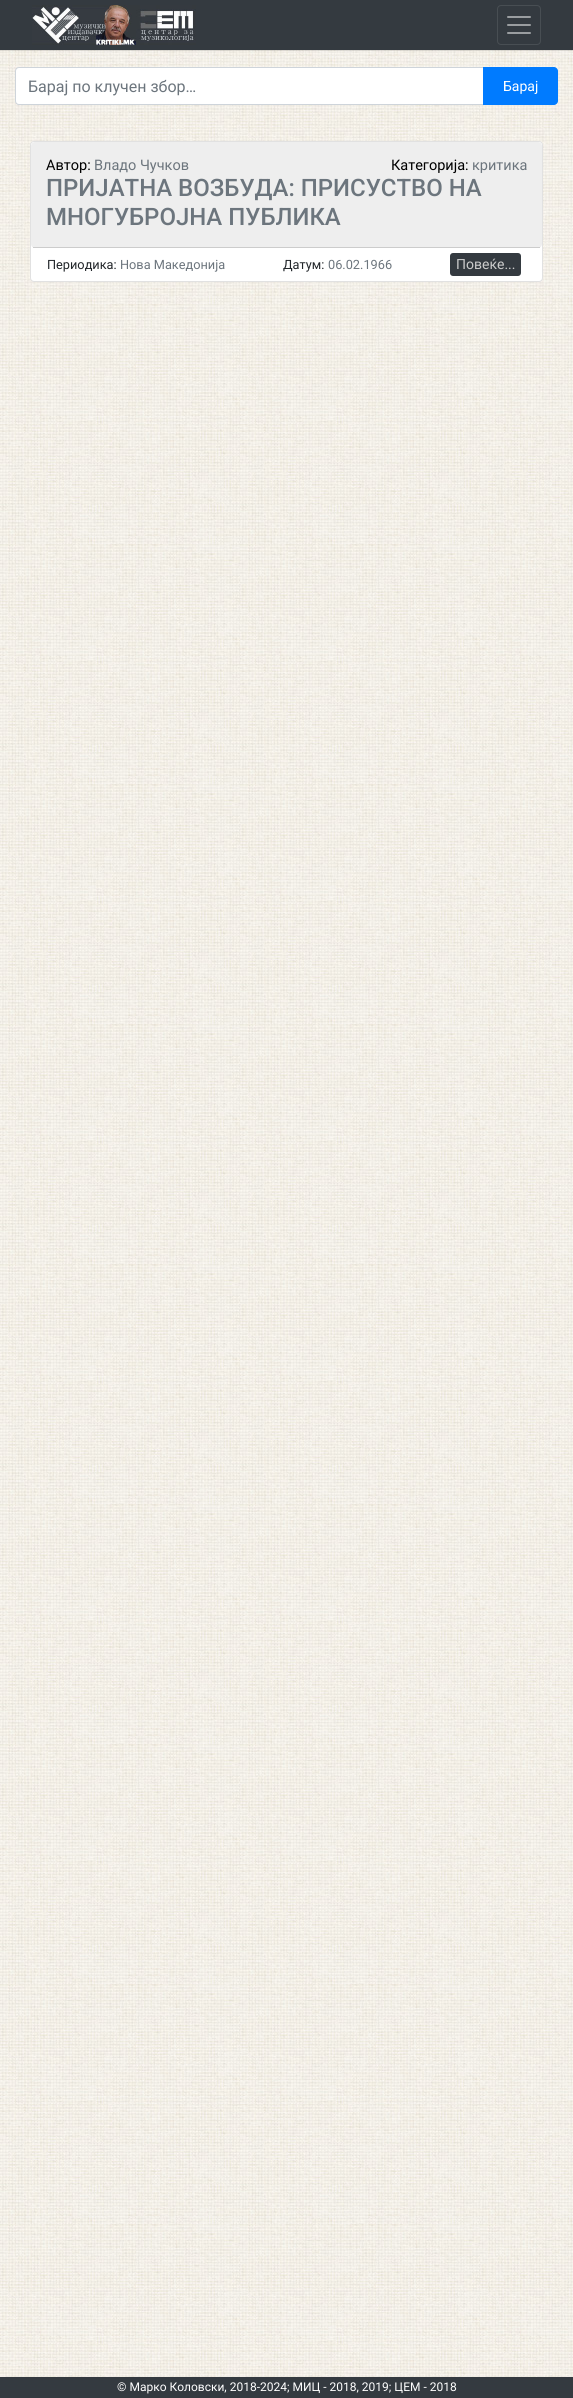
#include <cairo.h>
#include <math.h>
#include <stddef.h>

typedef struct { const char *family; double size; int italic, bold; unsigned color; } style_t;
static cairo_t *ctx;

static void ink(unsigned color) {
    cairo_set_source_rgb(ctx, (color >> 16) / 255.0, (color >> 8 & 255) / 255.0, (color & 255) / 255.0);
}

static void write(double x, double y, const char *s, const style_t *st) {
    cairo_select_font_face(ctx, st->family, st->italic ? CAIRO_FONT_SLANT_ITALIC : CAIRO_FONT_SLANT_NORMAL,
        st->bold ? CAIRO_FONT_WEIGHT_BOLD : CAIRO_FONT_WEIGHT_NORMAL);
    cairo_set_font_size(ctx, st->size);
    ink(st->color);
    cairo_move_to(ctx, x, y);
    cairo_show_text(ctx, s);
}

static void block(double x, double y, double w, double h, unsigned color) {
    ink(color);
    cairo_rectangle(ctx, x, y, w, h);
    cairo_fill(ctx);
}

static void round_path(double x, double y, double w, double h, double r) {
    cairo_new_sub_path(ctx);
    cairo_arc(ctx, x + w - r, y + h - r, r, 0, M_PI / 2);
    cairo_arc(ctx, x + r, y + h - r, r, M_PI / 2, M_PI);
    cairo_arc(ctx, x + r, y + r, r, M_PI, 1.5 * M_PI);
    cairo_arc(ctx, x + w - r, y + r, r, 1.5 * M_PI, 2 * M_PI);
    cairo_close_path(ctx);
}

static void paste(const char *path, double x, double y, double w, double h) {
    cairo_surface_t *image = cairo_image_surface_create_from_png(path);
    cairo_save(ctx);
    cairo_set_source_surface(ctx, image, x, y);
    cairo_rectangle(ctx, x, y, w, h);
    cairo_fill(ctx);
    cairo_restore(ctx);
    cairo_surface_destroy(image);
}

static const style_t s1 = {"Roboto", 16, 0, 0, 0x6c757d};
static const style_t s2 = {"Roboto", 14, 0, 0, 0xffffff};
static const style_t s3 = {"Roboto", 14.5, 0, 0, 0x000000};
static const style_t s4 = {"Roboto", 14.5, 0, 0, 0x6c757d};
static const style_t s5 = {"Roboto Medium", 24, 0, 0, 0x6c757d};
static const style_t s6 = {"Roboto", 12.75, 0, 0, 0x212529};
static const style_t s7 = {"Roboto", 12.75, 0, 0, 0x6c757d};
static const style_t s8 = {"Roboto", 14, 0, 0, 0xcccccc};
static const style_t s9 = {"Roboto", 12, 0, 0, 0xffffff};

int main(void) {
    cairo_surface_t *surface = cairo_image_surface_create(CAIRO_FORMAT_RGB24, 573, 2398);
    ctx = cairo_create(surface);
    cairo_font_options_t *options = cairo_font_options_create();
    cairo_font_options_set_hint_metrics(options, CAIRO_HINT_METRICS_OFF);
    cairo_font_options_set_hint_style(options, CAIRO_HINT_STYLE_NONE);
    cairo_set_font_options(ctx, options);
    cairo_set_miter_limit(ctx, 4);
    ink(0xffffff);
    cairo_paint(ctx);
    paste("pic1.png", 0, 50, 573, 2327);
    cairo_set_source_rgba(ctx, 0, 0, 0, 0.12);
    cairo_rectangle(ctx, 0, 50, 573, 1);
    cairo_fill(ctx);
    block(0, 0, 573, 50, 0x343a40);
    paste("pic2.png", 32, 5, 164, 40);
    round_path(497.5, 5.5, 43, 39, 3.5);
    ink(0x484e53);
    cairo_set_line_width(ctx, 1);
    cairo_stroke(ctx);
    paste("pic3.png", 507, 16, 24, 18);
    ink(0xffffff);
    cairo_new_path(ctx);
    cairo_move_to(ctx, 19, 67.5);
    cairo_line_to(ctx, 483.5, 67.5);
    cairo_line_to(ctx, 483.5, 104.5);
    cairo_line_to(ctx, 19, 104.5);
    cairo_curve_to(ctx, 17, 104.5, 15.5, 103, 15.5, 101);
    cairo_line_to(ctx, 15.5, 71);
    cairo_curve_to(ctx, 15.5, 69, 17, 67.5, 19, 67.5);
    cairo_close_path(ctx);
    cairo_fill_preserve(ctx);
    ink(0xced4da);
    cairo_stroke(ctx);
    write(28, 92, "Барај по клучен збор…", &s1);
    ink(0x007bff);
    cairo_new_path(ctx);
    cairo_move_to(ctx, 483, 67);
    cairo_line_to(ctx, 554, 67);
    cairo_curve_to(ctx, 556, 67, 558, 69, 558, 71);
    cairo_line_to(ctx, 558, 101);
    cairo_curve_to(ctx, 558, 103, 556, 105, 554, 105);
    cairo_line_to(ctx, 483, 105);
    cairo_close_path(ctx);
    cairo_fill(ctx);
    write(503, 91, "Барај", &s2);
    round_path(30, 141, 513, 141, 4);
    cairo_fill(ctx);
    round_path(30.5, 141.5, 512, 140, 3.5);
    cairo_set_source_rgba(ctx, 0, 0, 0, 0.12);
    cairo_stroke(ctx);
    ink(0xeeeeee);
    round_path(31, 142, 511, 106, 4);
    cairo_fill(ctx);
    block(33, 247, 507, 1, 0xcccccc);
    write(46, 170, "Автор:", &s3);
    write(94, 170, "Владо Чучков", &s4);
    write(391, 170, "Категорија:", &s3);
    write(472, 170, "критика", &s4);
    write(46, 196, "ПРИЈАТНА ВОЗБУДА: ПРИСУСТВО НА", &s5);
    write(46, 225, "МНОГУБРОЈНА ПУБЛИКА", &s5);
    write(47, 269, "Периодика:", &s6);
    write(120, 269, "Нова Македонија", &s7);
    write(283, 269, "Датум:", &s6);
    write(328, 269, "06.02.1966", &s7);
    ink(0x343a40);
    round_path(450, 253, 71, 23, 3);
    cairo_fill(ctx);
    write(456, 269, "Повеќе...", &s8);
    block(0, 2377, 573, 21, 0x343a40);
    write(117, 2391, "© Марко Коловски, 2018-2024; МИЦ - 2018, 2019; ЦЕМ - 2018", &s9);
    cairo_surface_write_to_png(surface, "screenshot.png");
    cairo_font_options_destroy(options);
    cairo_destroy(ctx);
    cairo_surface_destroy(surface);
    return 0;
}
